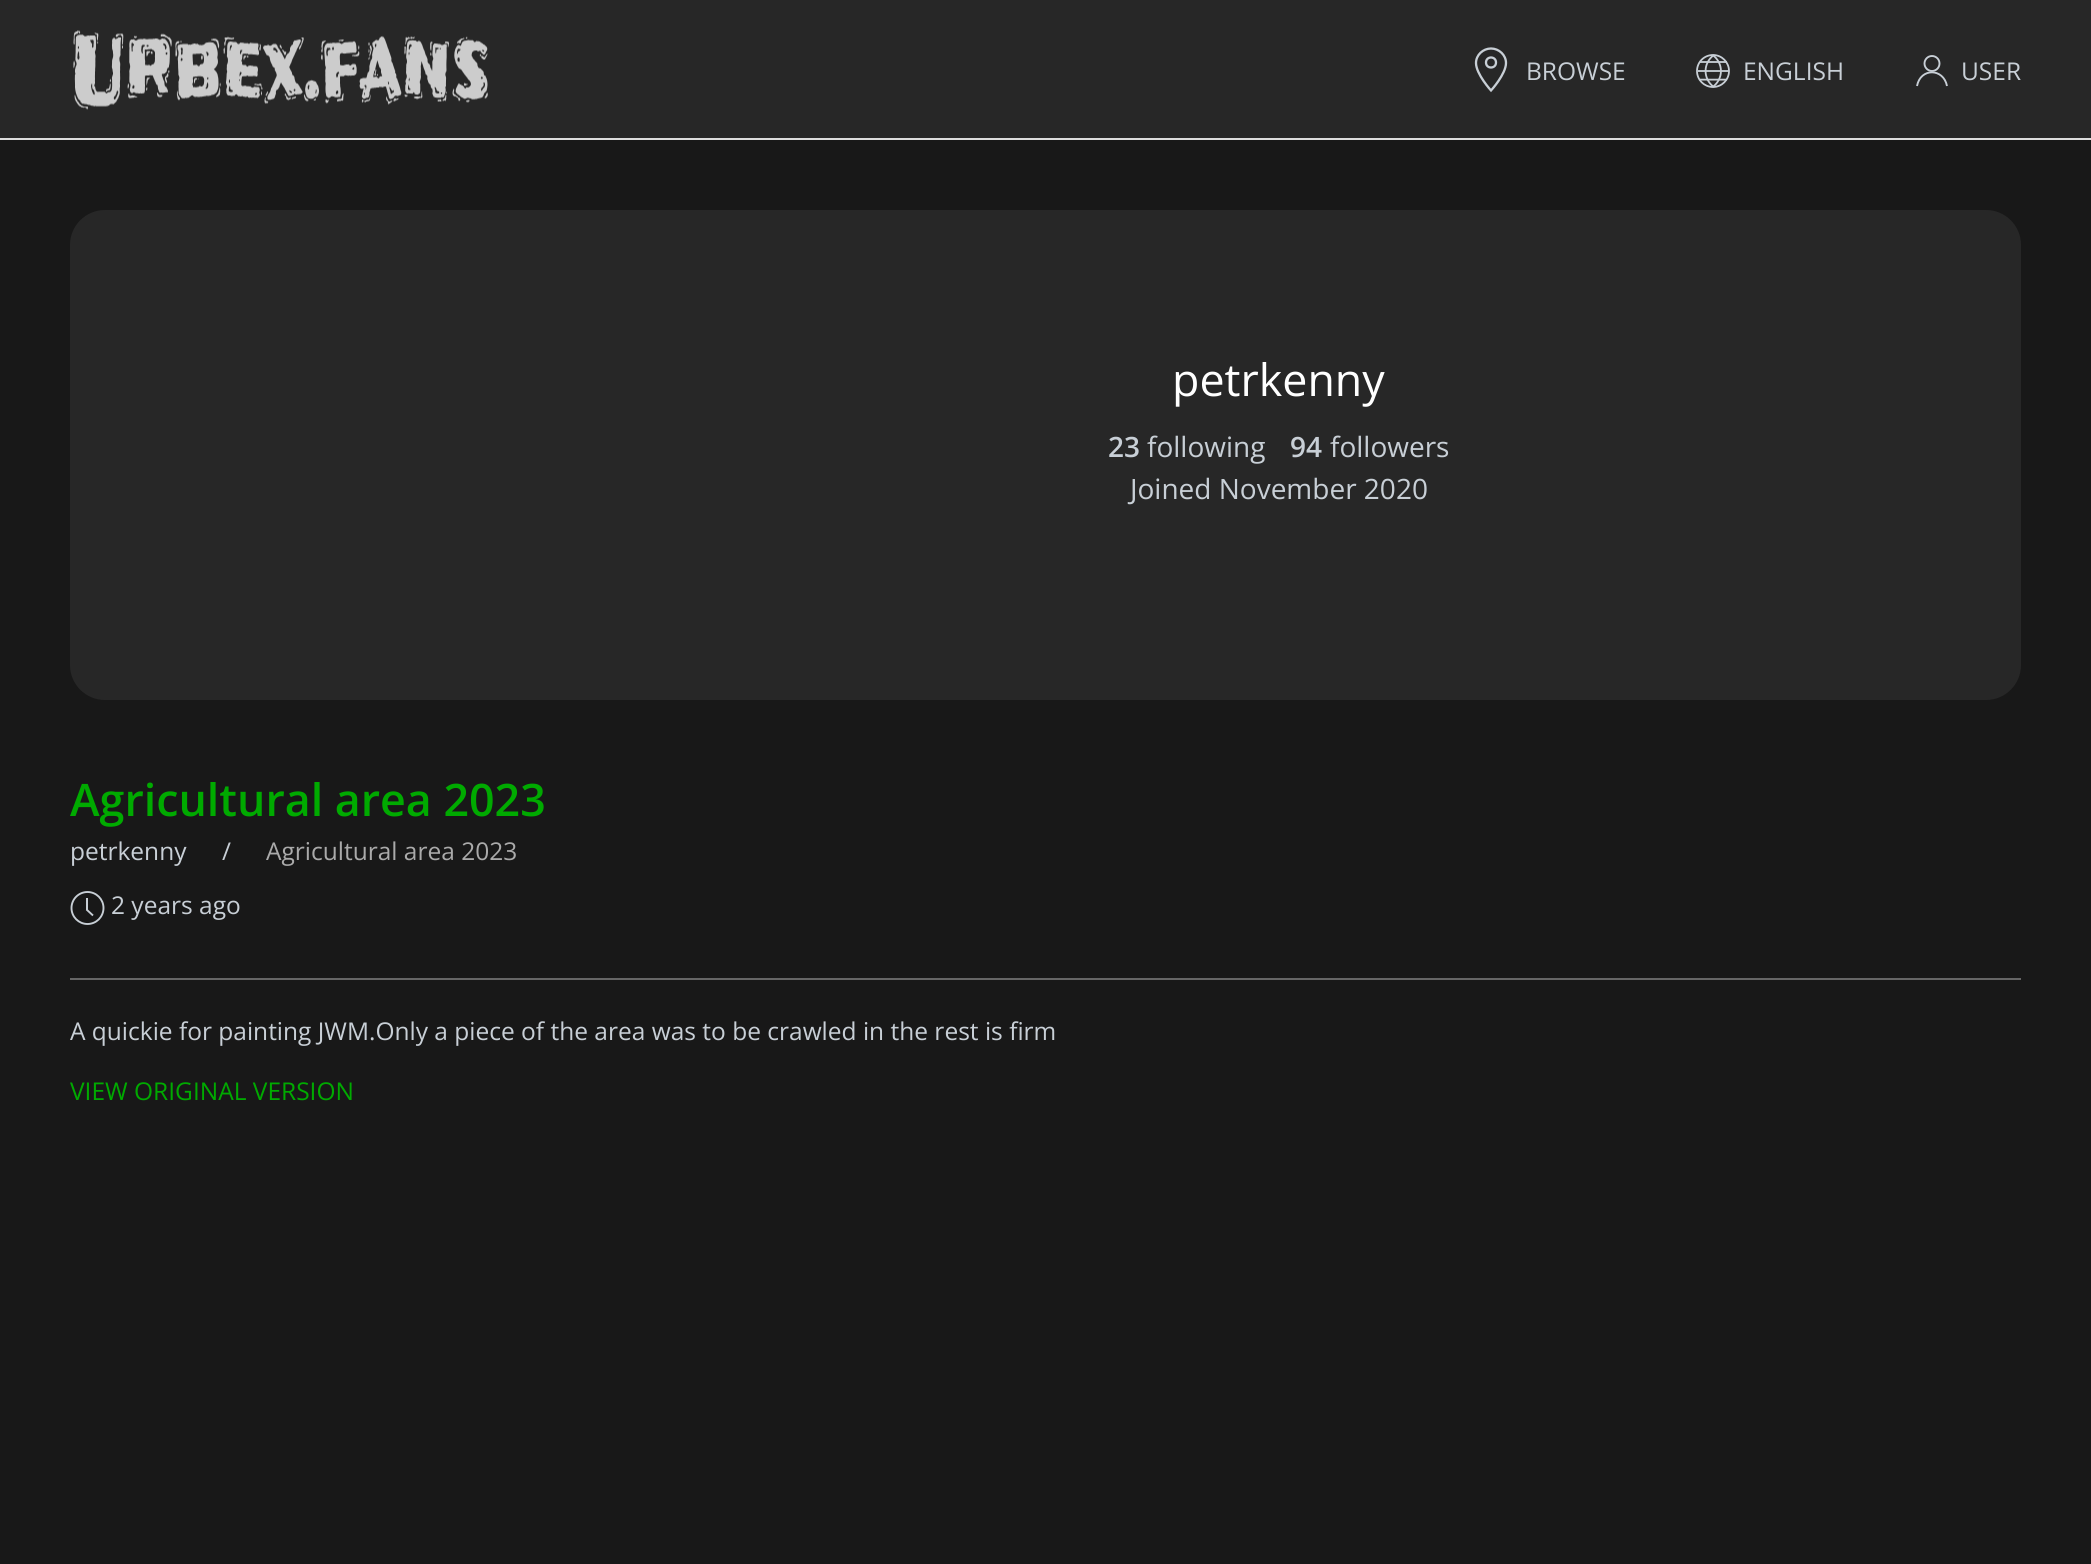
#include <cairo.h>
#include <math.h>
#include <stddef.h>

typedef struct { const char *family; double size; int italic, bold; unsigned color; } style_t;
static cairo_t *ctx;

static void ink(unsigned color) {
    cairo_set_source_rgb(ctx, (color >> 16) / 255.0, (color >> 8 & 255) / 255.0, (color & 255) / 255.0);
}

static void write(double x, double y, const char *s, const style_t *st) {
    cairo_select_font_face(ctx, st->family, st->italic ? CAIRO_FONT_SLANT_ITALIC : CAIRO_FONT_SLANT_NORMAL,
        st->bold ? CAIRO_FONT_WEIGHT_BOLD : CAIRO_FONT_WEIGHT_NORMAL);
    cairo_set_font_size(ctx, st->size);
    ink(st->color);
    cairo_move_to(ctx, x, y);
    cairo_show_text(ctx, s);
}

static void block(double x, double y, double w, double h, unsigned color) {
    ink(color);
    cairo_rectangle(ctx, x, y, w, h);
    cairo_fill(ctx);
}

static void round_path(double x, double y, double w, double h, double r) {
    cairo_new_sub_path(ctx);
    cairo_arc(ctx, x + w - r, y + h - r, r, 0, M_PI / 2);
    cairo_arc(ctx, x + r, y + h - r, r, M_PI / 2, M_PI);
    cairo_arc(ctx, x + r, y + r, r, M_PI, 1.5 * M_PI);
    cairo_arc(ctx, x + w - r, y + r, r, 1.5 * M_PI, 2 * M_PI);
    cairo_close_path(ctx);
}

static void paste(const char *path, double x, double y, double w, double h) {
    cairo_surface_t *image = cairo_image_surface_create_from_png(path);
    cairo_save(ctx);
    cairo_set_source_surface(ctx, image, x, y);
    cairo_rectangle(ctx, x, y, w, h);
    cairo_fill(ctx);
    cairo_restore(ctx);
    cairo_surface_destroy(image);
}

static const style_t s1 = {"Open Sans", 24.5, 0, 0, 0xc8cfd6};
static const style_t s2 = {"Open Sans", 44.75, 0, 0, 0xffffff};
static const style_t s3 = {"Open Sans SemiBold", 28, 0, 0, 0xc8cfd6};
static const style_t s4 = {"Open Sans", 28, 0, 0, 0xc8cfd6};
static const style_t s5 = {"Open Sans SemiBold", 44.75, 0, 0, 0x00aa00};
static const style_t s6 = {"Open Sans", 24.5, 0, 0, 0xaaaaaa};
static const style_t s7 = {"Open Sans", 24.5, 0, 0, 0x00aa00};

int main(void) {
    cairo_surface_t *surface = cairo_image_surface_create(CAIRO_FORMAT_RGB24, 2091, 1564);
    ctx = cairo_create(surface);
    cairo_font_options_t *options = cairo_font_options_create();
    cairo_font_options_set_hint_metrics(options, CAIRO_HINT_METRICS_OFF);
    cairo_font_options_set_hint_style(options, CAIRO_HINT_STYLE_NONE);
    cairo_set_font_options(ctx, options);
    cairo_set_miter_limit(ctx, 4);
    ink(0x181818);
    cairo_paint(ctx);
    block(0, 0, 2091, 138, 0x272727);
    block(0, 138, 2091, 2, 0xdddddd);
    paste("pic1.png", 73, 30, 415, 80);
    cairo_new_path(ctx);
    cairo_move_to(ctx, 1491, 48.5);
    cairo_curve_to(ctx, 1483, 48.5, 1476, 55, 1476, 63);
    cairo_curve_to(ctx, 1476, 74, 1491, 90.5, 1491, 90.5);
    cairo_curve_to(ctx, 1491, 90.5, 1506, 74, 1506, 63);
    cairo_curve_to(ctx, 1506, 55, 1499, 48.5, 1491, 48.5);
    cairo_close_path(ctx);
    ink(0xc8cfd6);
    cairo_set_line_width(ctx, 2.3);
    cairo_stroke(ctx);
    cairo_arc(ctx, 1491, 62.5, 5, 0, 2 * M_PI);
    cairo_stroke(ctx);
    write(1526, 80, "BROWSE", &s1);
    paste("pic2.png", 1696, 54, 34, 34);
    write(1743, 80, "ENGLISH", &s1);
    cairo_new_path(ctx);
    cairo_arc(ctx, 1932, 63.5, 7.5, 0, 2 * M_PI);
    cairo_set_line_width(ctx, 1.9);
    cairo_stroke(ctx);
    cairo_new_path(ctx);
    cairo_move_to(ctx, 1917, 86);
    cairo_curve_to(ctx, 1920.5, 67.5, 1943.5, 68, 1947, 86);
    cairo_stroke(ctx);
    write(1961, 80, "USER", &s1);
    ink(0x272727);
    round_path(70, 210, 1951, 490, 35);
    cairo_fill(ctx);
    write(1172, 396, "petrkenny", &s2);
    write(1108, 457, "23", &s3);
    write(1147, 457, "following", &s4);
    write(1290, 457, "94", &s3);
    write(1330, 457, "followers", &s4);
    write(1130, 499, "Joined November 2020", &s4);
    write(70, 816, "Agricultural area 2023", &s5);
    write(70, 860, "petrkenny", &s1);
    write(222, 860, "/", &s1);
    write(266, 860, "Agricultural area 2023", &s6);
    cairo_new_path(ctx);
    cairo_arc(ctx, 87.5, 908, 16, 0, 2 * M_PI);
    ink(0xc8cfd6);
    cairo_stroke(ctx);
    block(86, 898, 2, 12, 0xc8cfd6);
    cairo_new_path(ctx);
    cairo_move_to(ctx, 93, 915.5);
    cairo_line_to(ctx, 86.5, 909.5);
    cairo_stroke(ctx);
    write(111, 914, "2 years ago", &s1);
    block(70, 978, 1951, 2, 0x666666);
    write(70, 1040, "A quickie for painting JWM.Only a piece of the area was to be crawled in the rest is firm", &s1);
    write(70, 1100, "VIEW ORIGINAL VERSION", &s7);
    cairo_surface_write_to_png(surface, "screenshot.png");
    cairo_font_options_destroy(options);
    cairo_destroy(ctx);
    cairo_surface_destroy(surface);
    return 0;
}
